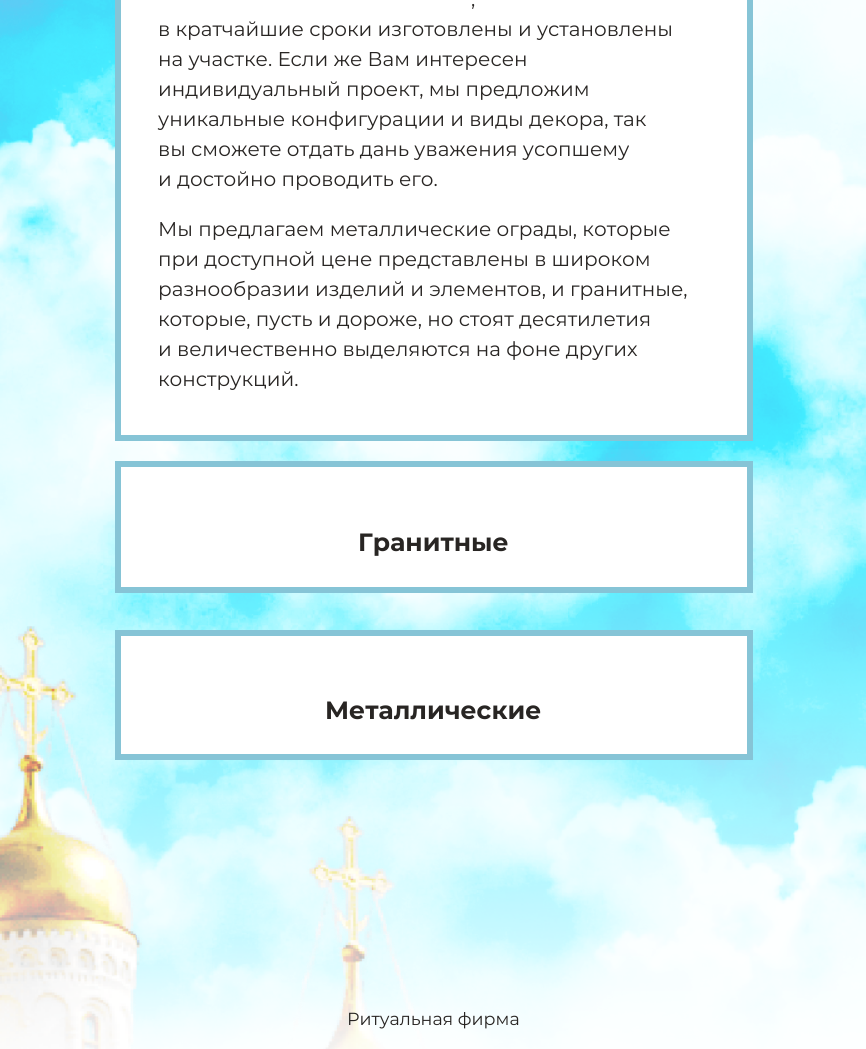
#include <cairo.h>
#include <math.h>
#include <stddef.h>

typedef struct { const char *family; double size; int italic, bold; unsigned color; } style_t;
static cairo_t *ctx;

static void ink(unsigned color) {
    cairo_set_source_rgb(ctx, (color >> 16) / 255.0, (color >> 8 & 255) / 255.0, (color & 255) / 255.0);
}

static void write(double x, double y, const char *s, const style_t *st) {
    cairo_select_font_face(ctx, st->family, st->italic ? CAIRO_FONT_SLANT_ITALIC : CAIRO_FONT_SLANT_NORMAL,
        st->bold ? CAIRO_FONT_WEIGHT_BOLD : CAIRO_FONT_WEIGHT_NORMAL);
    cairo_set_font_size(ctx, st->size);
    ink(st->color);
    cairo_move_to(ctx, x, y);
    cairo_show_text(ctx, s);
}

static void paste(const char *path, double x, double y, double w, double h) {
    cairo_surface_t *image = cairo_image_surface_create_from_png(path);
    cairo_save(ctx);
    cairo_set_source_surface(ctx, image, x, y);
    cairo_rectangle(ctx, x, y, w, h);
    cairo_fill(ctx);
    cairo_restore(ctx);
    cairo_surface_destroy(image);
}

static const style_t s1 = {"Montserrat", 20, 0, 0, 0x282523};
static const style_t s2 = {"Montserrat", 25, 0, 1, 0x282523};
static const style_t s3 = {"Montserrat", 17.5, 0, 0, 0x282523};

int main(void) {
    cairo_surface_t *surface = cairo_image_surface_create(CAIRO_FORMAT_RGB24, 866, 1049);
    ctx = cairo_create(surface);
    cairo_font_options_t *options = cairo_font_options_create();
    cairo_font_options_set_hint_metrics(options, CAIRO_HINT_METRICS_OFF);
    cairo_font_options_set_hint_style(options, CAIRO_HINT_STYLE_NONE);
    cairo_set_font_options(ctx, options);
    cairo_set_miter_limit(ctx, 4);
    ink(0xffffff);
    cairo_paint(ctx);
    paste("pic1.png", 0, 0, 866, 1049);
    ink(0xffffff);
    cairo_rectangle(ctx, 118, -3, 632, 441);
    cairo_fill_preserve(ctx);
    ink(0x86c4d6);
    cairo_set_line_width(ctx, 6);
    cairo_stroke(ctx);
    write(471, 6, ",", &s1);
    write(158, 36, "в кратчайшие сроки изготовлены и установлены", &s1);
    write(158, 66, "на участке. Если же Вам интересен", &s1);
    write(158, 96, "индивидуальный проект, мы предложим", &s1);
    write(158, 126, "уникальные конфигурации и виды декора, так", &s1);
    write(158, 156, "вы сможете отдать дань уважения усопшему", &s1);
    write(158, 186, "и достойно проводить его.", &s1);
    write(158, 236, "Мы предлагаем металлические ограды, которые", &s1);
    write(158, 266, "при доступной цене представлены в широком", &s1);
    write(158, 296, "разнообразии изделий и элементов, и гранитные,", &s1);
    write(158, 326, "которые, пусть и дороже, но стоят десятилетия", &s1);
    write(158, 356, "и величественно выделяются на фоне других", &s1);
    write(158, 386, "конструкций.", &s1);
    paste("pic2.png", 0, 449, 866, 600);
    ink(0xffffff);
    cairo_rectangle(ctx, 118, 464, 632, 126);
    cairo_fill_preserve(ctx);
    ink(0x86c4d6);
    cairo_stroke(ctx);
    write(358, 551, "Гранитные", &s2);
    ink(0xffffff);
    cairo_rectangle(ctx, 118, 633, 632, 124);
    cairo_fill_preserve(ctx);
    ink(0x86c4d6);
    cairo_stroke(ctx);
    write(325, 719, "Металлические", &s2);
    write(347, 1025, "Ритуальная фирма", &s3);
    cairo_surface_write_to_png(surface, "screenshot.png");
    cairo_font_options_destroy(options);
    cairo_destroy(ctx);
    cairo_surface_destroy(surface);
    return 0;
}
